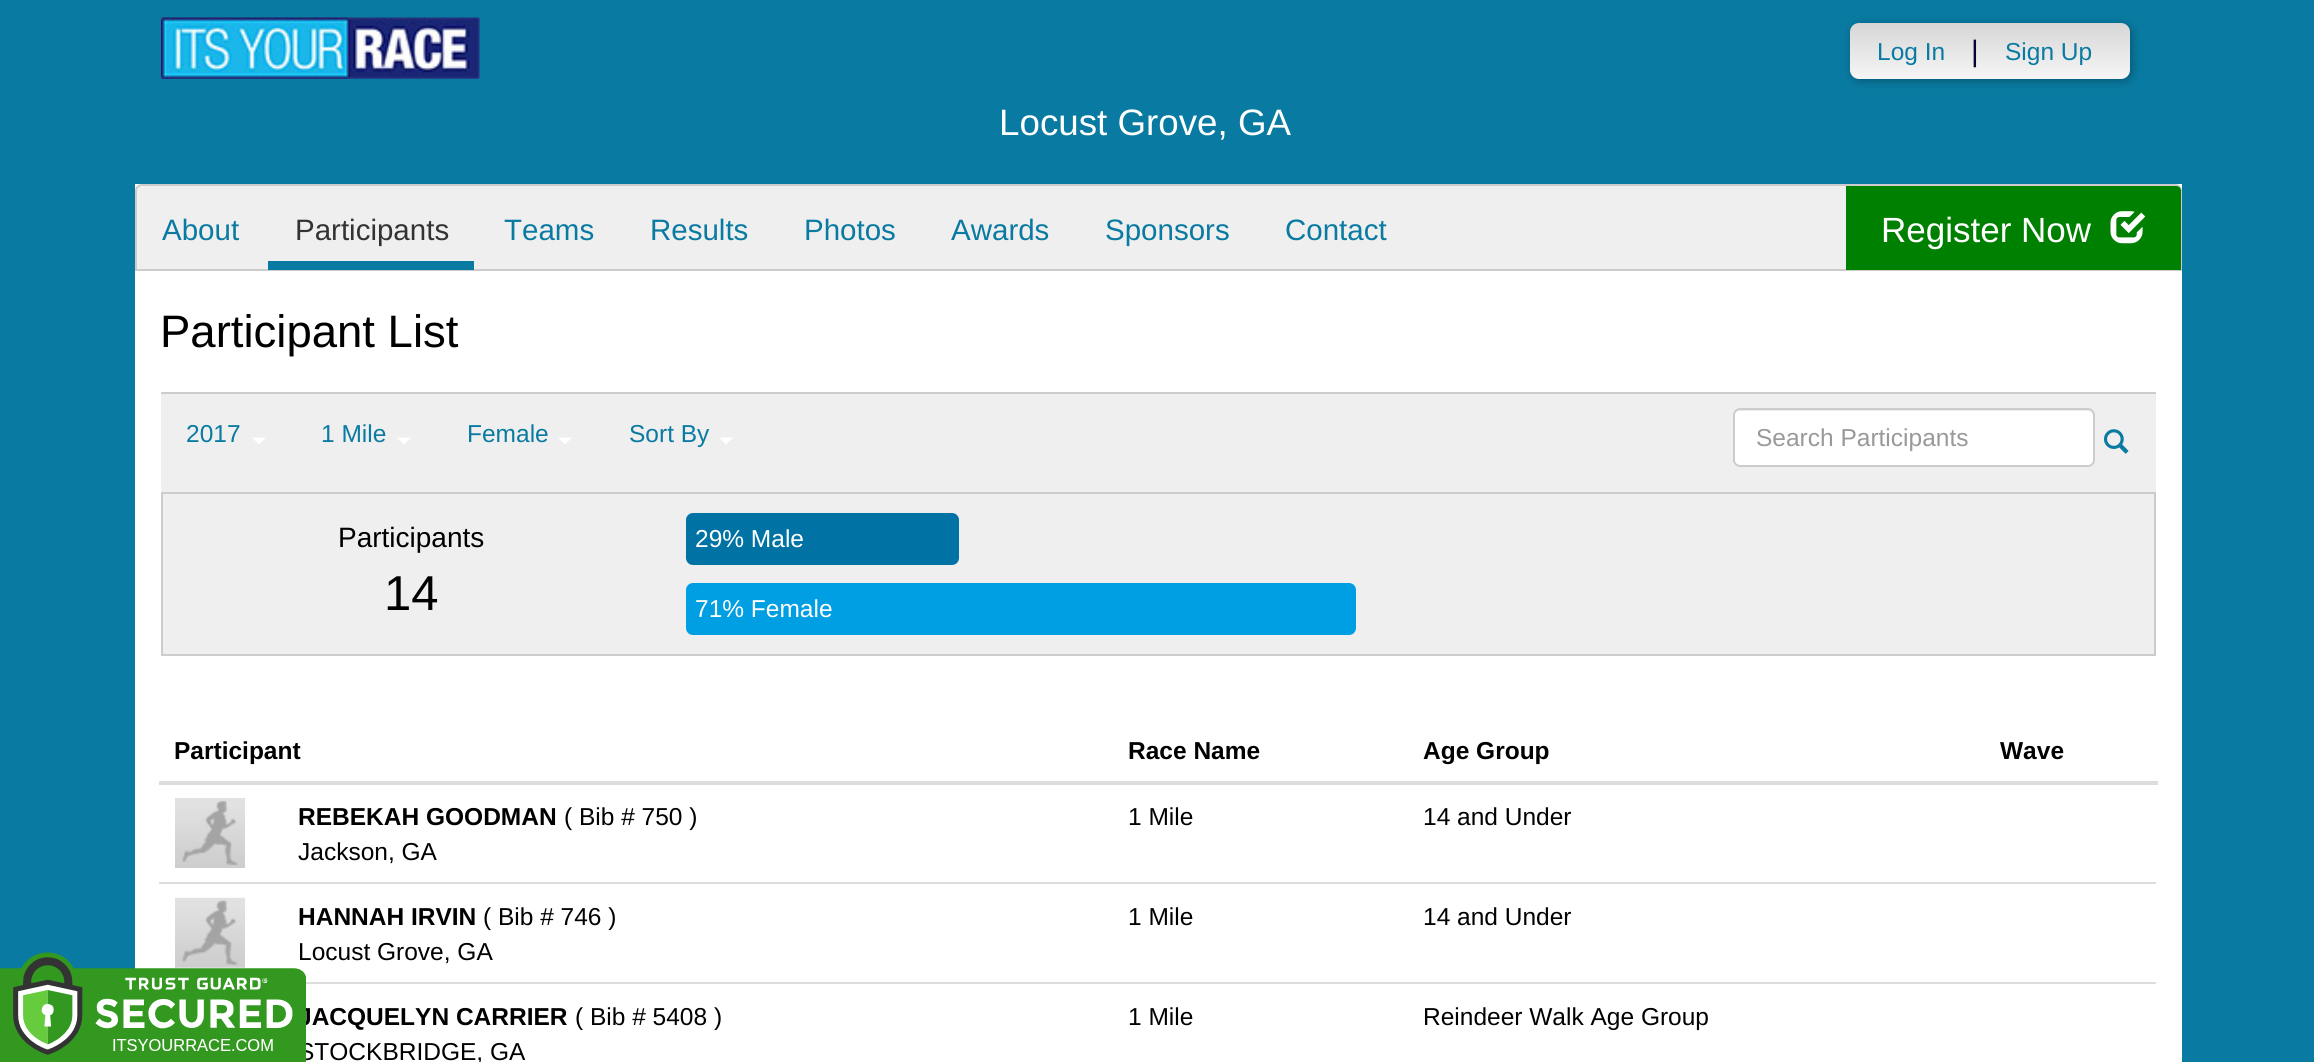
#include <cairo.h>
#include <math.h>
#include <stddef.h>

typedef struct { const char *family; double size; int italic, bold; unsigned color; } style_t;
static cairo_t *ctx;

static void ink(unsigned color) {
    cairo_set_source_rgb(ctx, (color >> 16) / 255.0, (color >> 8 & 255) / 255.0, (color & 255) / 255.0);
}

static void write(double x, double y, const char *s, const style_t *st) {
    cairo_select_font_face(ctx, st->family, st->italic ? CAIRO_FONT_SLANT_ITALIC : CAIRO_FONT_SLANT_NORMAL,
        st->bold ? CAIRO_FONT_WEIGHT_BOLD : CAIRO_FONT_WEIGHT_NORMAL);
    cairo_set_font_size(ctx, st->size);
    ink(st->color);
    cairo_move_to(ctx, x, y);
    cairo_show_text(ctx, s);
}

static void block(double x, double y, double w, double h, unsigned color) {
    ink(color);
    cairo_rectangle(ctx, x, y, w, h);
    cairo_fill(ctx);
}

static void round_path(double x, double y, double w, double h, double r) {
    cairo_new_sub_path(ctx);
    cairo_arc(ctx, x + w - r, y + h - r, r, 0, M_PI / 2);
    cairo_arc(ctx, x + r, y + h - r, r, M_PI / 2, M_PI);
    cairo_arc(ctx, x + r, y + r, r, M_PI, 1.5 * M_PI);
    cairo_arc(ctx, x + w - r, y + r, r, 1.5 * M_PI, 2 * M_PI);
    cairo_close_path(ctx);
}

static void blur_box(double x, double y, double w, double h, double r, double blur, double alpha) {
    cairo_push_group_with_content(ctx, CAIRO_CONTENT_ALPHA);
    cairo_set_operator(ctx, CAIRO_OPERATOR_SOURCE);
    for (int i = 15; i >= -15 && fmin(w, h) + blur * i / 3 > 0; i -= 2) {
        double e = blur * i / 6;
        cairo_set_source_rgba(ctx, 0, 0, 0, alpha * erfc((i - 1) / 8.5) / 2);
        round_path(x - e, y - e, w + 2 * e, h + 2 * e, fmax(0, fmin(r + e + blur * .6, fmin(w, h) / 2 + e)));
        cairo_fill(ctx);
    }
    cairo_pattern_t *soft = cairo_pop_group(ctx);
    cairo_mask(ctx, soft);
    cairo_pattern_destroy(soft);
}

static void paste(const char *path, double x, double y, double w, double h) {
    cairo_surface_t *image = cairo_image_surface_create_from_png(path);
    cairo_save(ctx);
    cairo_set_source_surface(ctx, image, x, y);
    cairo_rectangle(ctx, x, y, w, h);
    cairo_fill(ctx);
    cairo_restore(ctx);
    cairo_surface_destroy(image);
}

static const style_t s1 = {"Liberation Sans", 24.5, 0, 0, 0x000000};
static const style_t s2 = {"Liberation Sans", 24.5, 0, 1, 0x000000};
static const style_t s3 = {"Liberation Sans", 24.5, 0, 0, 0x097aa1};
static const style_t s4 = {"Liberation Sans", 29.5, 0, 0, 0x040438};
static const style_t s5 = {"Liberation Sans", 36.75, 0, 0, 0xffffff};
static const style_t s6 = {"Liberation Sans", 29.5, 0, 0, 0x097aa1};
static const style_t s7 = {"Liberation Sans", 29.5, 0, 0, 0x333333};
static const style_t s8 = {"Liberation Sans", 35, 0, 0, 0xffffff};
static const style_t s9 = {"Liberation Sans", 45.5, 0, 0, 0x000000};
static const style_t s10 = {"Liberation Sans", 24.5, 0, 0, 0x999999};
static const style_t s11 = {"Liberation Sans", 28, 0, 0, 0x000000};
static const style_t s12 = {"Liberation Sans", 49, 0, 0, 0x000000};
static const style_t s13 = {"Liberation Sans", 24.5, 0, 0, 0xffffff};

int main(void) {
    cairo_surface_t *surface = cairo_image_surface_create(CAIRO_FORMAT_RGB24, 2314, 1062);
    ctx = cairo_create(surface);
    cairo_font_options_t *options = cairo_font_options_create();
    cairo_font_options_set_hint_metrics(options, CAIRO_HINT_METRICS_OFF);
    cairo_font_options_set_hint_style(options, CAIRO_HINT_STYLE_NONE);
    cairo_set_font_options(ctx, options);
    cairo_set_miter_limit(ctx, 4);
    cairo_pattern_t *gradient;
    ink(0x097aa1);
    cairo_paint(ctx);
    block(135, 184, 2047, 878, 0xffffff);
    paste("pic6.png", 175, 897, 70, 71);
    write(298, 960, "Locust Grove, GA", &s1);
    write(298, 1025, "JACQUELYN CARRIER", &s2);
    write(298, 1060, "STOCKBRIDGE, GA", &s1);
    paste("pic1.png", 0, 952, 306, 110);
    paste("pic2.png", 161, 17, 319, 62);
    ink(0x000000);
    blur_box(1852, 25, 280, 56, 9, 4.5, 0.3);
    gradient = cairo_pattern_create_linear(1990, 23, 1990, 79);
    cairo_pattern_add_color_stop_rgba(gradient, 0, 0.839, 0.839, 0.839, 1);
    cairo_pattern_add_color_stop_rgba(gradient, 1, 0.965, 0.965, 0.965, 1);
    cairo_set_source(ctx, gradient);
    cairo_pattern_destroy(gradient);
    round_path(1850, 23, 280, 56, 9);
    cairo_fill(ctx);
    write(1877, 60, "Log In", &s3);
    write(1971, 61, "|", &s4);
    write(2005, 60, "Sign Up", &s3);
    write(999, 135, "Locust Grove, GA", &s5);
    ink(0xefefef);
    cairo_new_path(ctx);
    cairo_move_to(ctx, 142, 185);
    cairo_line_to(ctx, 2175, 185);
    cairo_curve_to(ctx, 2178.5, 185, 2181, 187.5, 2181, 191);
    cairo_line_to(ctx, 2181, 270);
    cairo_line_to(ctx, 136, 270);
    cairo_line_to(ctx, 136, 191);
    cairo_curve_to(ctx, 136, 187.5, 138.5, 185, 142, 185);
    cairo_close_path(ctx);
    cairo_fill_preserve(ctx);
    ink(0xcccccc);
    cairo_stroke(ctx);
    write(162, 240, "About", &s6);
    block(268, 261, 206, 9, 0x097aa1);
    write(295, 240, "Participants", &s7);
    write(504, 240, "Teams", &s6);
    write(650, 240, "Results", &s6);
    write(804, 240, "Photos", &s6);
    write(951, 240, "Awards", &s6);
    write(1105, 240, "Sponsors", &s6);
    write(1285, 240, "Contact", &s6);
    ink(0x008000);
    cairo_new_path(ctx);
    cairo_move_to(ctx, 1846, 186);
    cairo_line_to(ctx, 2176, 186);
    cairo_curve_to(ctx, 2179, 186, 2181, 188, 2181, 191);
    cairo_line_to(ctx, 2181, 270);
    cairo_line_to(ctx, 1846, 270);
    cairo_close_path(ctx);
    cairo_fill(ctx);
    write(1881, 242, "Register Now", &s8);
    paste("pic3.png", 2110, 211, 36, 33);
    write(160, 347, "Participant List", &s9);
    block(161, 394, 1995, 98, 0xefefef);
    block(161, 392, 1995, 2, 0xcccccc);
    write(186, 442, "2017", &s3);
    ink(0xffffff);
    cairo_new_path(ctx);
    cairo_move_to(ctx, 252, 437.5);
    cairo_line_to(ctx, 266, 437.5);
    cairo_line_to(ctx, 259, 444.5);
    cairo_close_path(ctx);
    cairo_fill(ctx);
    write(321, 442, "1 Mile", &s3);
    ink(0xffffff);
    cairo_new_path(ctx);
    cairo_move_to(ctx, 397, 437.5);
    cairo_line_to(ctx, 411, 437.5);
    cairo_line_to(ctx, 404, 444.5);
    cairo_close_path(ctx);
    cairo_fill(ctx);
    write(467, 442, "Female", &s3);
    ink(0xffffff);
    cairo_new_path(ctx);
    cairo_move_to(ctx, 558, 437.5);
    cairo_line_to(ctx, 572, 437.5);
    cairo_line_to(ctx, 565, 444.5);
    cairo_close_path(ctx);
    cairo_fill(ctx);
    write(629, 442, "Sort By", &s3);
    ink(0xffffff);
    cairo_new_path(ctx);
    cairo_move_to(ctx, 719, 437.5);
    cairo_line_to(ctx, 733, 437.5);
    cairo_line_to(ctx, 726, 444.5);
    cairo_close_path(ctx);
    cairo_fill(ctx);
    round_path(1733, 408, 362, 59, 7);
    cairo_fill(ctx);
    ink(0xececec);
    cairo_new_path(ctx);
    cairo_move_to(ctx, 1740, 411);
    cairo_line_to(ctx, 2088, 411);
    cairo_curve_to(ctx, 2091, 411, 2093, 414, 2093, 416);
    cairo_line_to(ctx, 2093, 415);
    cairo_curve_to(ctx, 2093, 412, 2091, 410, 2088, 410);
    cairo_line_to(ctx, 1739, 410);
    cairo_curve_to(ctx, 1736, 410, 1734, 412, 1734, 415);
    cairo_line_to(ctx, 1734, 416);
    cairo_curve_to(ctx, 1734, 414, 1737, 411, 1740, 411);
    cairo_close_path(ctx);
    cairo_fill(ctx);
    round_path(1734, 409, 360, 57, 6);
    ink(0xcccccc);
    cairo_stroke(ctx);
    write(1756, 446, "Search Participants", &s10);
    paste("pic4.png", 2104, 429, 25, 25);
    ink(0xefefef);
    cairo_rectangle(ctx, 162, 493, 1993, 162);
    cairo_fill_preserve(ctx);
    ink(0xcccccc);
    cairo_stroke(ctx);
    write(338, 547, "Participants", &s11);
    write(384, 610, "14", &s12);
    ink(0x0072a3);
    round_path(686, 513, 273, 52, 7);
    cairo_fill(ctx);
    write(695, 547, "29% Male", &s13);
    ink(0x009ee3);
    round_path(686, 583, 670, 52, 7);
    cairo_fill(ctx);
    write(695, 617, "71% Female", &s13);
    write(174, 759, "Participant", &s2);
    write(1128, 759, "Race Name", &s2);
    write(1423, 759, "Age Group", &s2);
    block(159, 781, 1999, 4, 0xdddddd);
    write(2000, 759, "Wave", &s2);
    paste("pic5.png", 175, 798, 70, 70);
    write(298, 825, "REBEKAH GOODMAN", &s2);
    write(564, 825, "( Bib # 750 )", &s1);
    write(298, 860, "Jackson, GA", &s1);
    write(1128, 825, "1 Mile", &s1);
    write(1423, 825, "14 and Under", &s1);
    block(159, 882, 1997, 2, 0xdddddd);
    write(298, 925, "HANNAH IRVIN", &s2);
    write(483, 925, "( Bib # 746 )", &s1);
    write(1128, 925, "1 Mile", &s1);
    write(1423, 925, "14 and Under", &s1);
    block(306, 982, 1850, 2, 0xdddddd);
    write(575, 1025, "( Bib # 5408 )", &s1);
    write(1128, 1025, "1 Mile", &s1);
    write(1423, 1025, "Reindeer Walk Age Group", &s1);
    cairo_surface_write_to_png(surface, "screenshot.png");
    cairo_font_options_destroy(options);
    cairo_destroy(ctx);
    cairo_surface_destroy(surface);
    return 0;
}
